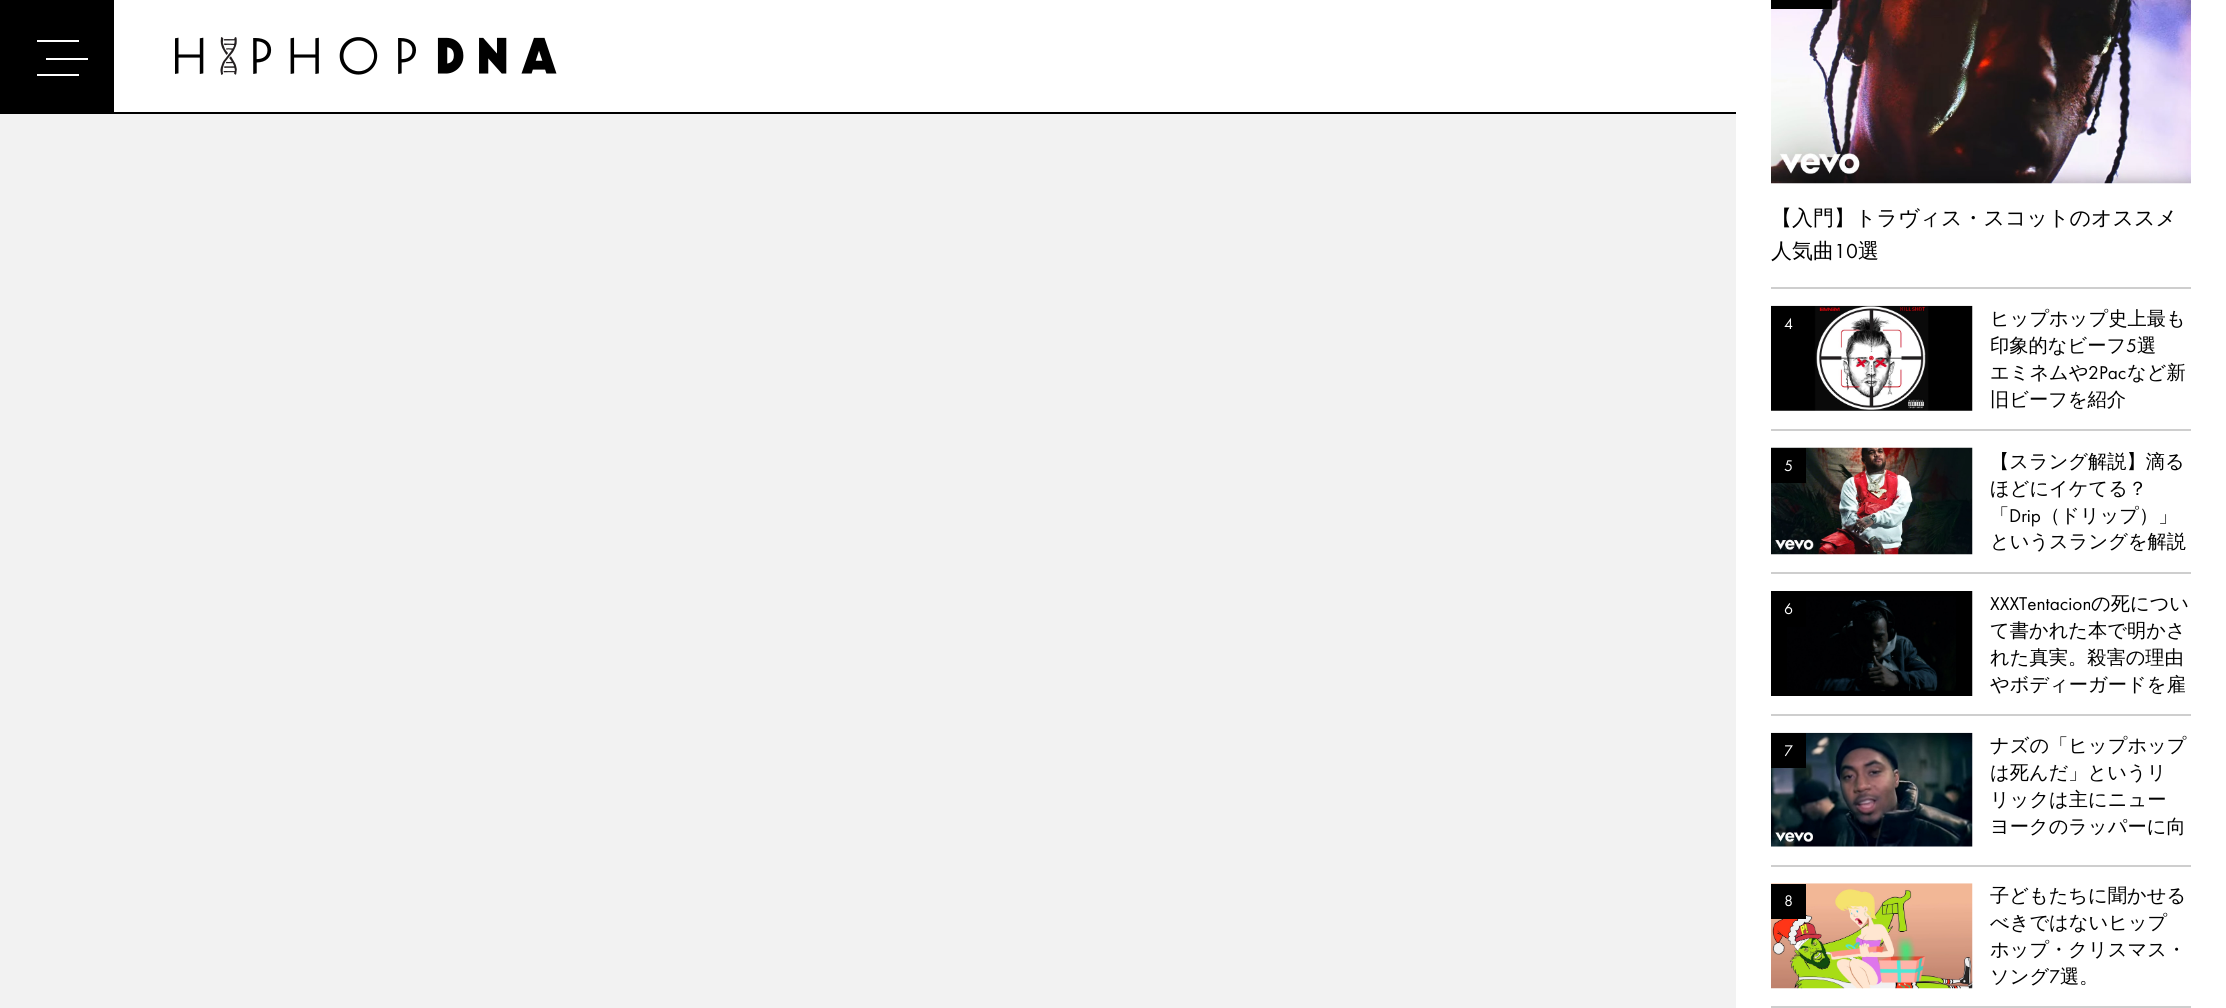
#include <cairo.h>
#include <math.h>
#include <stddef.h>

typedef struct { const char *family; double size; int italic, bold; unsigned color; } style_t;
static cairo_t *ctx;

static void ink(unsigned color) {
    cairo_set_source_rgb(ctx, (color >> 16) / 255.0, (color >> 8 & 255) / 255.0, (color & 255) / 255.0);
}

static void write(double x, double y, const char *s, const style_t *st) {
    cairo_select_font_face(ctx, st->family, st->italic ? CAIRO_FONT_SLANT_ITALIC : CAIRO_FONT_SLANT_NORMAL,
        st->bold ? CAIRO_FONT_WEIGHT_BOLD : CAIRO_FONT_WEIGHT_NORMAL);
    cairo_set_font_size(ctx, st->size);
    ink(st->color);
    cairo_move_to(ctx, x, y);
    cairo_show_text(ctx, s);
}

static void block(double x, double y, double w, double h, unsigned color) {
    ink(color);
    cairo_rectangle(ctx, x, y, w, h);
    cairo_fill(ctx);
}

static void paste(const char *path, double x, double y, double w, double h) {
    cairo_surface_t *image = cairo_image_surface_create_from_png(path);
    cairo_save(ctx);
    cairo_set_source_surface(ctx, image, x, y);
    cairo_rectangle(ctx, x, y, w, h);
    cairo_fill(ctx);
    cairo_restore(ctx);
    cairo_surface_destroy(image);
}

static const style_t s1 = {"WenQuanYi Zen Hei Medium", 21, 0, 0, 0x000000};
static const style_t s2 = {"Futura PT", 21, 0, 0, 0x000000};
static const style_t s3 = {"Futura PT", 16, 0, 0, 0xffffff};
static const style_t s4 = {"WenQuanYi Zen Hei Medium", 19.25, 0, 0, 0x000000};
static const style_t s5 = {"Futura PT", 19.25, 0, 0, 0x000000};

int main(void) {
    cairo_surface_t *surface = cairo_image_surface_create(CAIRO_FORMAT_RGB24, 2226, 1008);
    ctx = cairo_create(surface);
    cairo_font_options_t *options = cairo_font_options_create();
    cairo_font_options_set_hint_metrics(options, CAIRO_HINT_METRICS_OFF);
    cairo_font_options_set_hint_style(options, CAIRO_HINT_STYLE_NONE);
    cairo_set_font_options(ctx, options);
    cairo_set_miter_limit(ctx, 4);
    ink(0xf2f2f2);
    cairo_paint(ctx);
    block(0, 0, 114, 114, 0x000000);
    block(37, 40, 42, 2, 0xffffff);
    block(46, 58, 42, 2, 0xffffff);
    block(37, 74, 42, 2, 0xffffff);
    block(114, 0, 1622, 112, 0xffffff);
    block(114, 112, 1622, 2, 0x000000);
    paste("pic1.png", 175, 37, 382, 38);
    block(1736, 0, 490, 1008, 0xffffff);
    block(1771, 287, 420, 2, 0xcecece);
    paste("pic2.png", 1771, 0, 420, 184);
    block(1771, 0, 61, 9, 0x000000);
    write(1771, 225, "【入門】トラヴィス・スコットのオススメ", &s1);
    write(1771, 258, "人気曲", &s1);
    write(1834, 258, "10", &s2);
    write(1858, 258, "選", &s1);
    block(1771, 429, 420, 2, 0xcecece);
    paste("pic3.png", 1771, 305, 202, 106);
    write(1784, 329, "4", &s3);
    write(1990, 325, "ヒップホップ史上最も", &s4);
    write(1990, 352, "印象的なビーフ", &s4);
    write(2126, 352, "5", &s5);
    write(2137, 352, "選", &s4);
    write(1990, 379, "エミネムや", &s4);
    write(2088, 379, "2Pac", &s5);
    write(2127, 379, "など新", &s4);
    write(1990, 406, "旧ビーフを紹介", &s4);
    block(1771, 572, 420, 2, 0xcecece);
    paste("pic4.png", 1771, 447, 202, 108);
    block(1771, 448, 35, 35, 0x000000);
    write(1784, 471, "5", &s3);
    write(1990, 468, "【スラング解説】滴る", &s4);
    write(1990, 495, "ほどにイケてる？", &s4);
    write(1990, 522, "「", &s4);
    write(2009, 522, "Drip", &s5);
    write(2041, 522, "（ドリップ）」", &s4);
    write(1990, 548, "というスラングを解説", &s4);
    block(1771, 714, 420, 2, 0xcecece);
    paste("pic5.png", 1771, 591, 202, 105);
    block(1787, 596, 19, 31, 0x000000);
    write(1784, 614, "6", &s3);
    write(1990, 610, "XXXTentacion", &s5);
    write(2091, 610, "の死につい", &s4);
    write(1990, 637, "て書かれた本で明かさ", &s4);
    write(1990, 664, "れた真実。殺害の理由", &s4);
    write(1990, 691, "やボディーガードを雇", &s4);
    block(1771, 865, 420, 2, 0xcecece);
    paste("pic6.png", 1771, 732, 202, 115);
    block(1771, 733, 35, 35, 0x000000);
    write(1784, 756, "7", &s3);
    write(1990, 752, "ナズの「ヒップホップ", &s4);
    write(1990, 779, "は死んだ」というリ", &s4);
    write(1990, 806, "リックは主にニュー", &s4);
    write(1990, 833, "ヨークのラッパーに向", &s4);
    block(1771, 1006, 420, 2, 0xcecece);
    paste("pic7.png", 1771, 883, 202, 106);
    block(1771, 884, 35, 35, 0x000000);
    write(1784, 906, "8", &s3);
    write(1990, 902, "子どもたちに聞かせる", &s4);
    write(1990, 929, "べきではないヒップ", &s4);
    write(1990, 956, "ホップ・クリスマス・", &s4);
    write(1990, 983, "ソング", &s4);
    write(2049, 983, "7", &s5);
    write(2060, 983, "選。", &s4);
    cairo_surface_write_to_png(surface, "screenshot.png");
    cairo_font_options_destroy(options);
    cairo_destroy(ctx);
    cairo_surface_destroy(surface);
    return 0;
}
